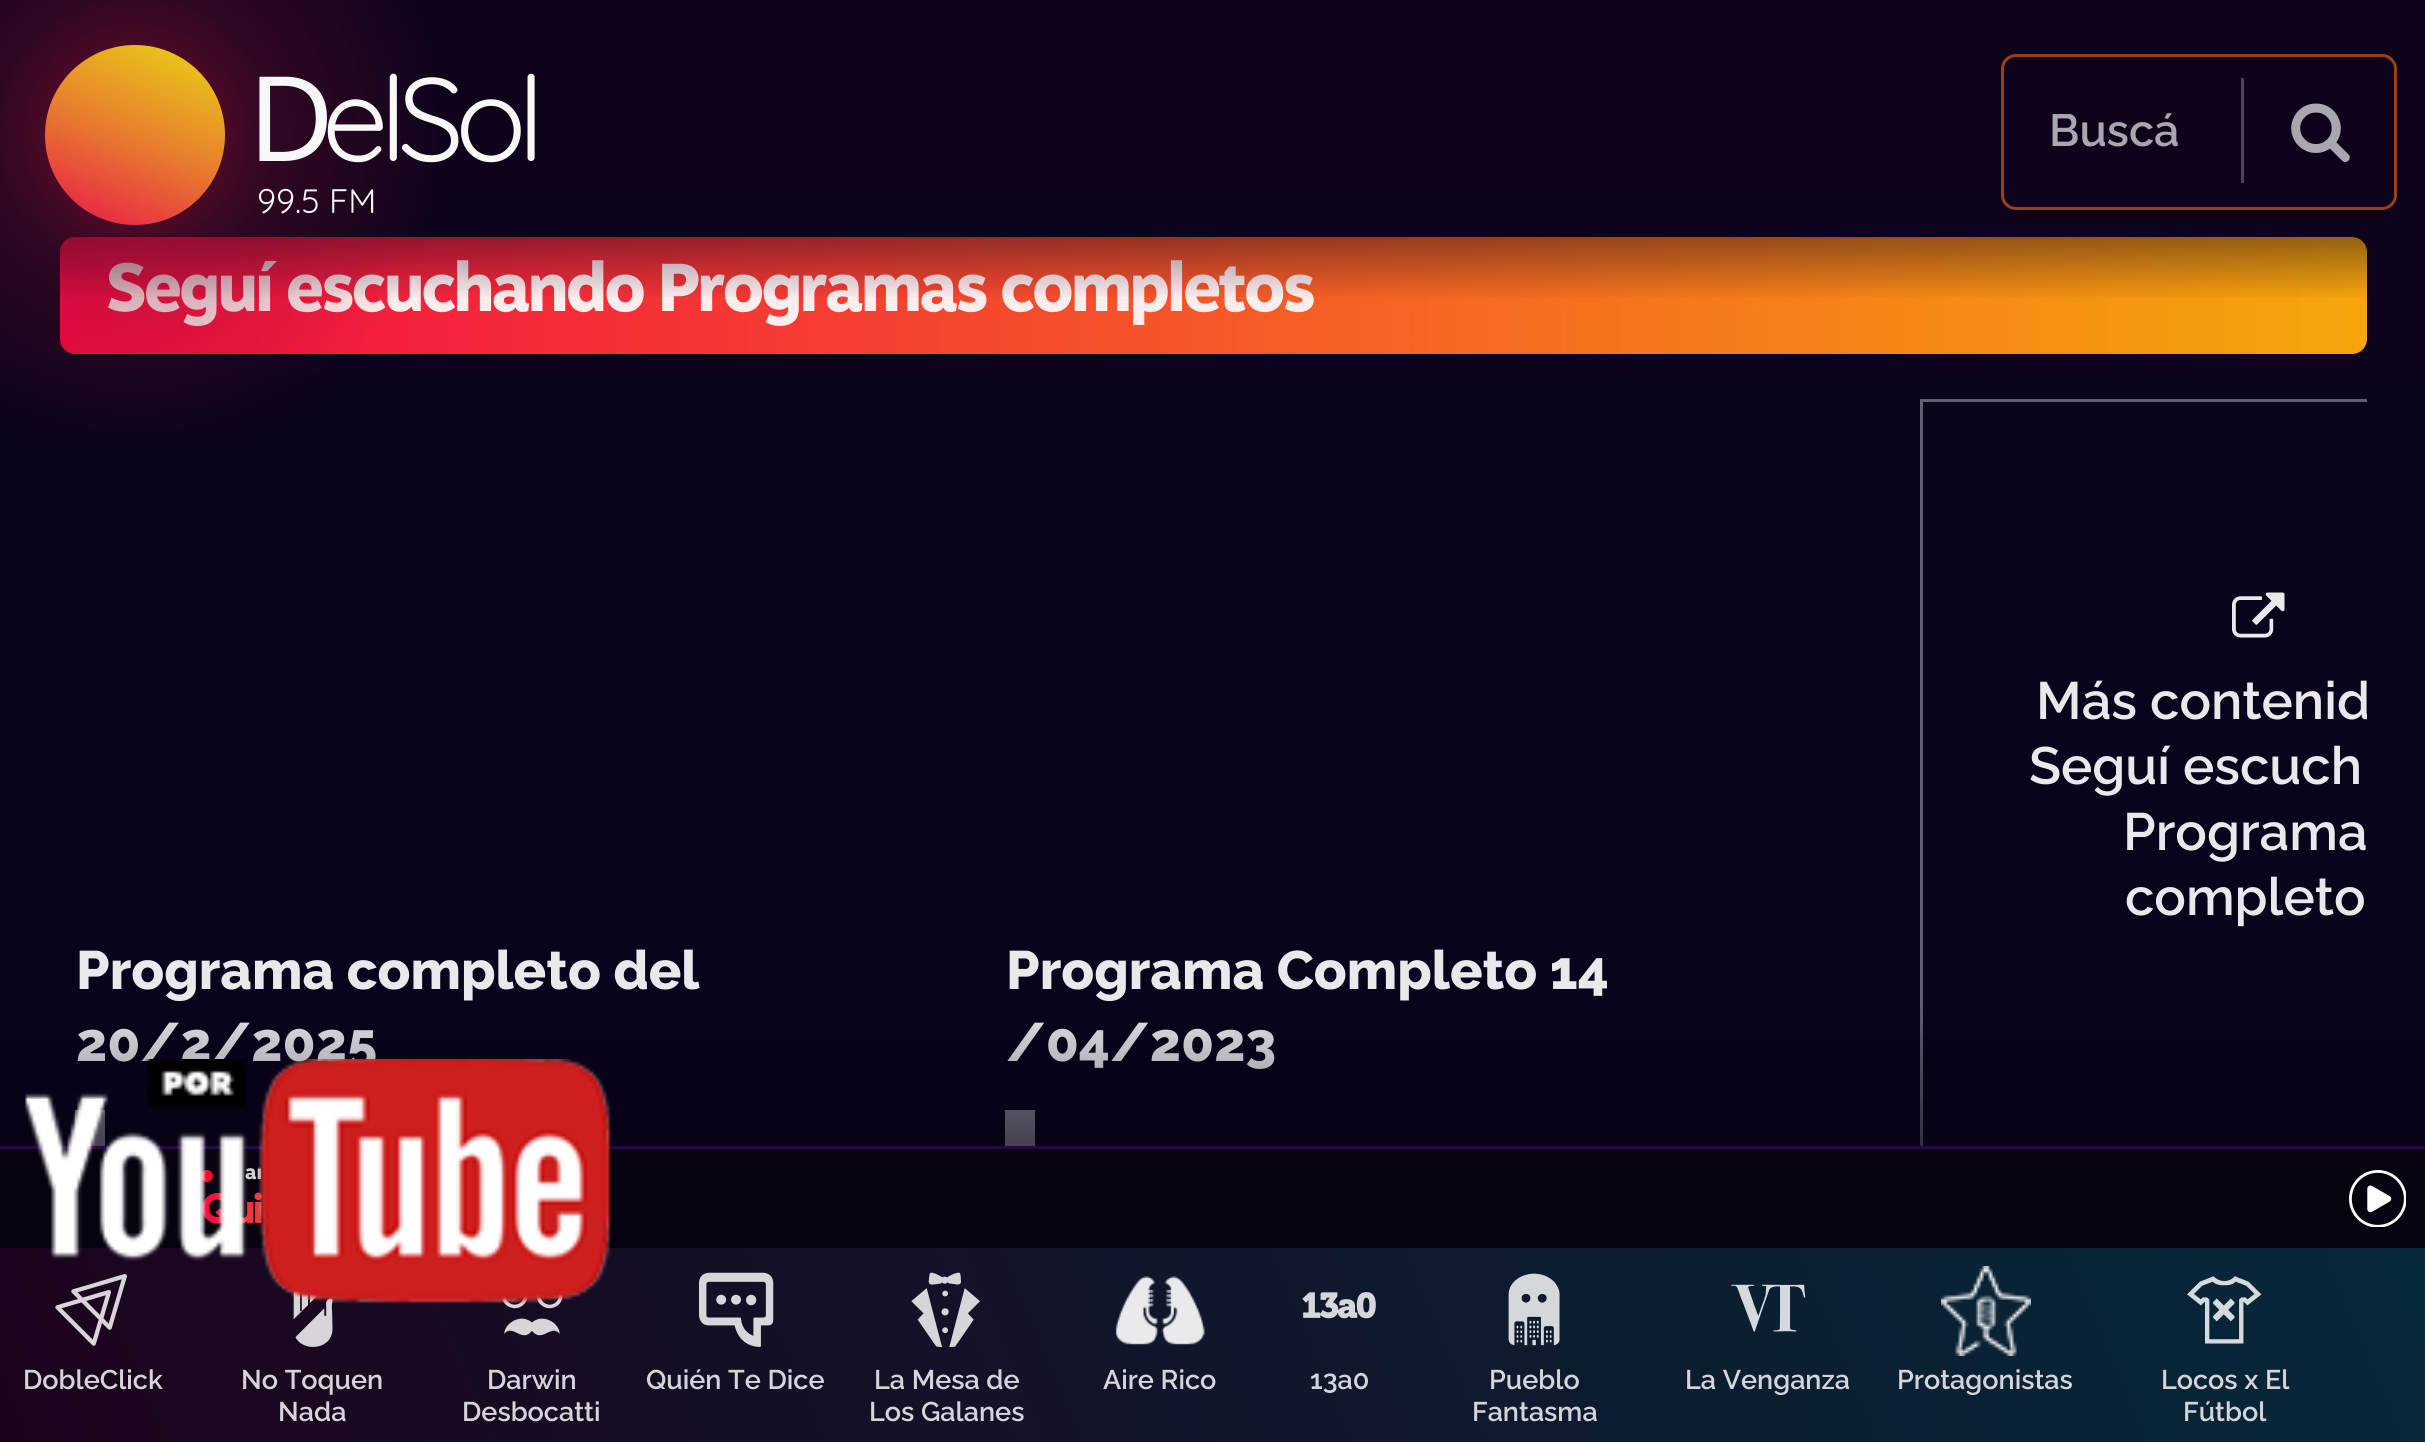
#include <cairo.h>
#include <math.h>
#include <stddef.h>

typedef struct { const char *family; double size; int italic, bold; unsigned color; } style_t;
static cairo_t *ctx;

static void ink(unsigned color) {
    cairo_set_source_rgb(ctx, (color >> 16) / 255.0, (color >> 8 & 255) / 255.0, (color & 255) / 255.0);
}

static void write(double x, double y, const char *s, const style_t *st) {
    cairo_select_font_face(ctx, st->family, st->italic ? CAIRO_FONT_SLANT_ITALIC : CAIRO_FONT_SLANT_NORMAL,
        st->bold ? CAIRO_FONT_WEIGHT_BOLD : CAIRO_FONT_WEIGHT_NORMAL);
    cairo_set_font_size(ctx, st->size);
    ink(st->color);
    cairo_move_to(ctx, x, y);
    cairo_show_text(ctx, s);
}

static void write_spaced(double x, double y, const char *s, double letter, double word) {
    cairo_move_to(ctx, x, y);
    while (*s) {
        char ch[5] = {0};
        int n = 0;
        do ch[n++] = *s++; while ((*s & 0xC0) == 0x80);
        cairo_show_text(ctx, ch);
        cairo_rel_move_to(ctx, letter + word * (*ch == ' '), 0);
    }
}

static void block(double x, double y, double w, double h, unsigned color) {
    ink(color);
    cairo_rectangle(ctx, x, y, w, h);
    cairo_fill(ctx);
}

static void round_path(double x, double y, double w, double h, double r) {
    cairo_new_sub_path(ctx);
    cairo_arc(ctx, x + w - r, y + h - r, r, 0, M_PI / 2);
    cairo_arc(ctx, x + r, y + h - r, r, M_PI / 2, M_PI);
    cairo_arc(ctx, x + r, y + r, r, M_PI, 1.5 * M_PI);
    cairo_arc(ctx, x + w - r, y + r, r, 1.5 * M_PI, 2 * M_PI);
    cairo_close_path(ctx);
}

static void paste(const char *path, double x, double y, double w, double h) {
    cairo_surface_t *image = cairo_image_surface_create_from_png(path);
    cairo_save(ctx);
    cairo_set_source_surface(ctx, image, x, y);
    cairo_rectangle(ctx, x, y, w, h);
    cairo_fill(ctx);
    cairo_restore(ctx);
    cairo_surface_destroy(image);
}

static const style_t s1 = {"Quicksand", 34, 0, 0, 0xf9f8f8};
static const style_t s2 = {"Raleway SemiBold", 45, 0, 0, 0xaaa6af};
static const style_t s3 = {"Raleway SemiBold", 52.5, 0, 0, 0xe9e8eb};
static const style_t s4 = {"Raleway ExtraBold", 54, 0, 0, 0xe9e8eb};
static const style_t s5 = {"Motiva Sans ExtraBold", 20, 0, 0, 0xd0cfd1};
static const style_t s6 = {"Raleway SemiBold", 27, 0, 0, 0xd7d4d9};

int main(void) {
    cairo_surface_t *surface = cairo_image_surface_create(CAIRO_FORMAT_RGB24, 2425, 1442);
    ctx = cairo_create(surface);
    cairo_font_options_t *options = cairo_font_options_create();
    cairo_font_options_set_hint_metrics(options, CAIRO_HINT_METRICS_OFF);
    cairo_font_options_set_hint_style(options, CAIRO_HINT_STYLE_NONE);
    cairo_set_font_options(ctx, options);
    cairo_set_miter_limit(ctx, 4);
    cairo_pattern_t *gradient;
    ink(0xffffff);
    cairo_paint(ctx);
    block(0, 0, 2425, 150, 0x0f031c);
    gradient = cairo_pattern_create_linear(1213, -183, 1214, 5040);
    cairo_pattern_add_color_stop_rgba(gradient, 0, 0.059, 0.012, 0.11, 1);
    cairo_pattern_add_color_stop_rgba(gradient, 0.5, 0.012, 0.012, 0.11, 1);
    cairo_pattern_add_color_stop_rgba(gradient, 1, 0.012, 0.012, 0.11, 1);
    cairo_set_source(ctx, gradient);
    cairo_pattern_destroy(gradient);
    cairo_rectangle(ctx, 0, 151, 2425, 995);
    cairo_fill(ctx);
    gradient = cairo_pattern_create_linear(60, 296, 2367, 295);
    cairo_pattern_add_color_stop_rgba(gradient, 0, 0.961, 0.039, 0.271, 1);
    cairo_pattern_add_color_stop_rgba(gradient, 1, 0.961, 0.651, 0.039, 1);
    cairo_set_source(ctx, gradient);
    cairo_pattern_destroy(gradient);
    round_path(60, 237, 2307, 117, 15);
    cairo_fill(ctx);
    cairo_select_font_face(ctx, "Motiva Sans ExtraBold", CAIRO_FONT_SLANT_NORMAL, CAIRO_FONT_WEIGHT_NORMAL);
    cairo_set_font_size(ctx, 67.5);
    ink(0xfeeded);
    write_spaced(106, 311, "Seguí escuchando Programas completos", -3, 0);
    gradient = cairo_pattern_create_linear(1214, 300, 1214, 150);
    cairo_pattern_add_color_stop_rgba(gradient, 0, 0.059, 0.012, 0.11, 0);
    cairo_pattern_add_color_stop_rgba(gradient, 1, 0.059, 0.012, 0.11, 1);
    cairo_set_source(ctx, gradient);
    cairo_pattern_destroy(gradient);
    cairo_rectangle(ctx, 0, 150, 2425, 147);
    cairo_fill(ctx);
    gradient = cairo_pattern_create_radial(135, 135, 0, 135, 135, 315);
    cairo_pattern_add_color_stop_rgba(gradient, 0, 0.91, 0.082, 0.29, 0.56);
    cairo_pattern_add_color_stop_rgba(gradient, 0.45, 0.478, 0.067, 0.184, 0.31);
    cairo_pattern_add_color_stop_rgba(gradient, 1, 0.478, 0.067, 0.184, 0);
    cairo_set_source(ctx, gradient);
    cairo_pattern_destroy(gradient);
    cairo_rectangle(ctx, 0, 0, 438, 438);
    cairo_fill(ctx);
    gradient = cairo_pattern_create_linear(89, 244, 181, 26);
    cairo_pattern_add_color_stop_rgba(gradient, 0, 0.91, 0.082, 0.29, 1);
    cairo_pattern_add_color_stop_rgba(gradient, 0.45, 0.91, 0.463, 0.188, 1);
    cairo_pattern_add_color_stop_rgba(gradient, 1, 0.91, 0.839, 0.082, 1);
    cairo_set_source(ctx, gradient);
    cairo_pattern_destroy(gradient);
    cairo_arc(ctx, 135, 135, 90, 0, 2 * M_PI);
    cairo_fill(ctx);
    cairo_select_font_face(ctx, "Noto Sans", CAIRO_FONT_SLANT_NORMAL, CAIRO_FONT_WEIGHT_NORMAL);
    cairo_set_font_size(ctx, 118);
    ink(0xf9f8f8);
    write_spaced(248, 161, "D", -9, 0);
    cairo_select_font_face(ctx, "Quicksand", CAIRO_FONT_SLANT_NORMAL, CAIRO_FONT_WEIGHT_NORMAL);
    write_spaced(322, 161, "elSol", -9, 0);
    write(257, 213, "99.5 FM", &s1);
    round_path(2002.5, 55.5, 393, 153, 13.5);
    ink(0x9b4017);
    cairo_set_line_width(ctx, 3);
    cairo_stroke(ctx);
    write(2049, 146, "Buscá", &s2);
    block(2241, 78, 3, 105, 0x4c4356);
    paste("pic1.png", 2291, 103, 59, 59);
    cairo_save(ctx);
    cairo_rectangle(ctx, 60, 177, 2307, 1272);
    cairo_clip(ctx);
    cairo_rectangle(ctx, 1921.5, 400.5, 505, 1017);
    cairo_set_source_rgba(ctx, 1, 1, 1, 0.36);
    cairo_stroke(ctx);
    cairo_restore(ctx);
    paste("pic2.png", 2232, 592, 53, 46);
    cairo_save(ctx);
    cairo_rectangle(ctx, 60, 177, 2307, 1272);
    cairo_clip(ctx);
    write(2036, 719, "Más contenid", &s3);
    cairo_restore(ctx);
    write(2029, 784, "Seguí escuch", &s3);
    write(2123, 850, "Programa", &s3);
    write(2125, 915, "completo", &s3);
    write(76, 989, "Programa completo del", &s4);
    write(76, 1061, "20/2/2025", &s4);
    block(75, 1110, 30, 36, 0x868490);
    write(1006, 989, "Programa Completo 14", &s4);
    write(1006, 1061, "/04/2023", &s4);
    block(1005, 1110, 30, 36, 0x868490);
    block(0, 1149, 2425, 99, 0x08010f);
    gradient = cairo_pattern_create_linear(1214, 1002, 1214, 1146);
    cairo_pattern_add_color_stop_rgba(gradient, 0, 0.031, 0.004, 0.059, 0);
    cairo_pattern_add_color_stop_rgba(gradient, 1, 0.031, 0.004, 0.059, 0.51);
    cairo_set_source(ctx, gradient);
    cairo_pattern_destroy(gradient);
    cairo_rectangle(ctx, 0, 1009, 2425, 137);
    cairo_fill(ctx);
    block(0, 1146, 2425, 3, 0x28044f);
    ink(0xf50a31);
    cairo_arc(ctx, 207, 1176, 6, 0, 2 * M_PI);
    cairo_fill(ctx);
    cairo_save(ctx);
    cairo_rectangle(ctx, 201, 1167, 2124, 21);
    cairo_clip(ctx);
    write(245, 1179, "ai", &s5);
    cairo_restore(ctx);
    cairo_select_font_face(ctx, "Gilroy ExtraBold", CAIRO_FONT_SLANT_NORMAL, CAIRO_FONT_WEIGHT_NORMAL);
    cairo_set_font_size(ctx, 42);
    gradient = cairo_pattern_create_linear(201, 1210, 434, 1210);
    cairo_pattern_add_color_stop_rgba(gradient, 0, 0.961, 0.039, 0.271, 1);
    cairo_pattern_add_color_stop_rgba(gradient, 1, 0.961, 0.808, 0.039, 1);
    cairo_set_source(ctx, gradient);
    cairo_pattern_destroy(gradient);
    write_spaced(201, 1223, "Qui", -3, 0);
    gradient = cairo_pattern_create_linear(150, 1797, 2277, 894);
    cairo_pattern_add_color_stop_rgba(gradient, 0, 0.11, 0.012, 0.11, 1);
    cairo_pattern_add_color_stop_rgba(gradient, 1, 0.02, 0.161, 0.231, 1);
    cairo_set_source(ctx, gradient);
    cairo_pattern_destroy(gradient);
    cairo_rectangle(ctx, 0, 1248, 2425, 194);
    cairo_fill(ctx);
    paste("pic5.png", 55, 1274, 72, 72);
    paste("pic6.png", 293, 1288, 40, 59);
    paste("pic7.png", 501, 1291, 68, 45);
    paste("pic3.png", 25, 1059, 586, 245);
    paste("pic4.png", 2349, 1170, 57, 57);
    write(23, 1389, "DobleClick", &s6);
    write(241, 1389, "No Toquen", &s6);
    write(278, 1421, "Nada", &s6);
    write(487, 1389, "Darwin", &s6);
    write(462, 1421, "Desbocatti", &s6);
    paste("pic8.png", 699, 1272, 75, 75);
    write(646, 1389, "Quién Te Dice", &s6);
    paste("pic9.png", 911, 1272, 69, 75);
    write(874, 1389, "La Mesa de", &s6);
    write(869, 1421, "Los Galanes", &s6);
    paste("pic10.png", 1115, 1276, 90, 69);
    write(1103, 1389, "Aire Rico", &s6);
    paste("pic11.png", 1302, 1292, 74, 27);
    write(1310, 1389, "13a0", &s6);
    paste("pic12.png", 1508, 1273, 52, 73);
    write(1489, 1389, "Pueblo", &s6);
    write(1472, 1421, "Fantasma", &s6);
    paste("pic13.png", 1731, 1284, 75, 48);
    write(1685, 1389, "La Venganza", &s6);
    paste("pic14.png", 1941, 1266, 90, 90);
    write(1897, 1389, "Protagonistas", &s6);
    paste("pic15.png", 2187, 1276, 75, 68);
    write(2161, 1389, "Locos x El", &s6);
    write(2183, 1421, "Fútbol", &s6);
    cairo_surface_write_to_png(surface, "screenshot.png");
    cairo_font_options_destroy(options);
    cairo_destroy(ctx);
    cairo_surface_destroy(surface);
    return 0;
}
